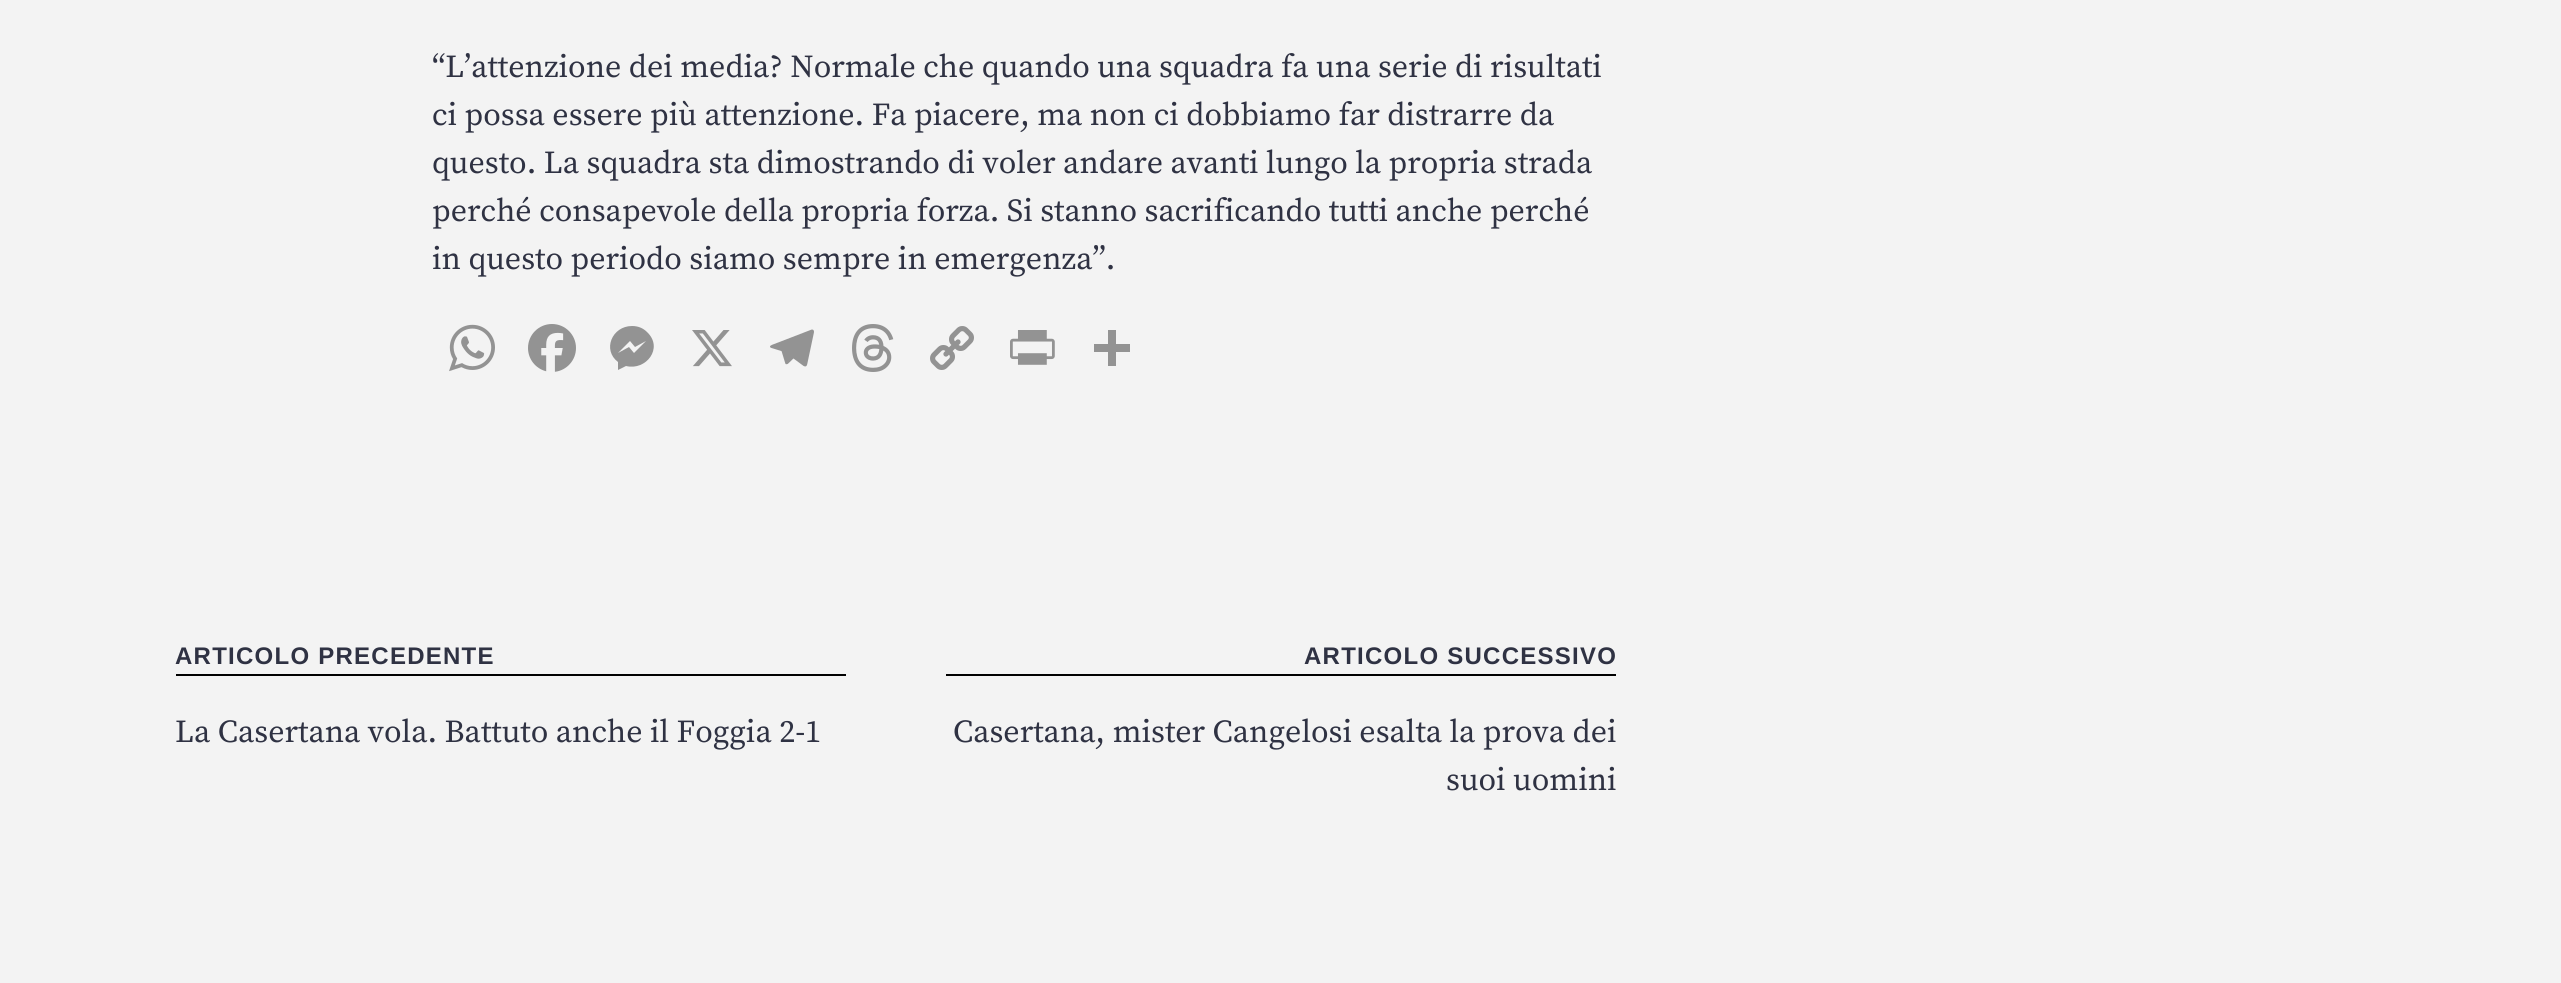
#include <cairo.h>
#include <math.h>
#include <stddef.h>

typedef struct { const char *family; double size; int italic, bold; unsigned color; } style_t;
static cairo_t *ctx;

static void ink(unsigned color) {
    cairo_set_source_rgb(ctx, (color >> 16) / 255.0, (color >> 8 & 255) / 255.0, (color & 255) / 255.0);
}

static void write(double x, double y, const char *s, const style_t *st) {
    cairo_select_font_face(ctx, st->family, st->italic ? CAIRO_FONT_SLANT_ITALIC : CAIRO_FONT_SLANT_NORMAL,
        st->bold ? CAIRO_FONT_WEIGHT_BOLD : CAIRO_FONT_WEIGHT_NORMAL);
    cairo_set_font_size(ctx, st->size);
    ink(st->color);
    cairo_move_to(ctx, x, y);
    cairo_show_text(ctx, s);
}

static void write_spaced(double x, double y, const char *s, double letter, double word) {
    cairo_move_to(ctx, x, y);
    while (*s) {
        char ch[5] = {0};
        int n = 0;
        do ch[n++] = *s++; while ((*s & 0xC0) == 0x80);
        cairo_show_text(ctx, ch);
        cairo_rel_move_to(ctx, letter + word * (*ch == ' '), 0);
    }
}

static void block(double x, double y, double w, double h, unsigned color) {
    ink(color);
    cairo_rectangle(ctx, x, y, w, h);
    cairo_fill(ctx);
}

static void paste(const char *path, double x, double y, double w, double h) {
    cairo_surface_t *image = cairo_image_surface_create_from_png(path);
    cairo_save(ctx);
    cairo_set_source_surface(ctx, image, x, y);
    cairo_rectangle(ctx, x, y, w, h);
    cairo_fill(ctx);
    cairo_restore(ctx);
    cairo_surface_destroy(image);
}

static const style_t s1 = {"Source Serif Pro", 32, 0, 0, 0x2f3243};

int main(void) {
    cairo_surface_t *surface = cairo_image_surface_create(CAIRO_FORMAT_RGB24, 2561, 983);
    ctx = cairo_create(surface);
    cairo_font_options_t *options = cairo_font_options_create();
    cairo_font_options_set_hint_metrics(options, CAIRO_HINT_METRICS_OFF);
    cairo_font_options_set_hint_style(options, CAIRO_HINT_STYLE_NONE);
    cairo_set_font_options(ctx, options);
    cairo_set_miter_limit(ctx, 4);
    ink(0xf3f3f3);
    cairo_paint(ctx);
    write(432, 77, "“L’attenzione dei media? Normale che quando una squadra fa una serie di risultati", &s1);
    write(432, 125, "ci possa essere più attenzione. Fa piacere, ma non ci dobbiamo far distrarre da", &s1);
    write(432, 173, "questo. La squadra sta dimostrando di voler andare avanti lungo la propria strada", &s1);
    write(432, 221, "perché consapevole della propria forza. Si stanno sacrificando tutti anche perché", &s1);
    write(432, 269, "in questo periodo siamo sempre in emergenza”.", &s1);
    paste("pic1.png", 449, 324, 46, 48);
    paste("pic2.png", 528, 324, 48, 48);
    ink(0x939393);
    cairo_new_path(ctx);
    cairo_move_to(ctx, 632, 326);
    cairo_curve_to(ctx, 612, 326, 602, 350, 618, 362);
    cairo_line_to(ctx, 618, 370);
    cairo_line_to(ctx, 626, 366);
    cairo_curve_to(ctx, 646, 371, 664, 348, 647, 332);
    cairo_curve_to(ctx, 643, 328, 638, 326, 632, 326);
    cairo_move_to(ctx, 634, 353);
    cairo_line_to(ctx, 629, 347);
    cairo_line_to(ctx, 618, 353);
    cairo_line_to(ctx, 630, 341);
    cairo_line_to(ctx, 635, 347);
    cairo_line_to(ctx, 646, 341);
    cairo_close_path(ctx);
    cairo_fill(ctx);
    paste("pic3.png", 692, 330, 40, 37);
    paste("pic4.png", 770, 329, 44, 38);
    paste("pic5.png", 852, 324, 42, 48);
    paste("pic6.png", 930, 326, 44, 44);
    paste("pic7.png", 1010, 330, 45, 35);
    block(1108, 330, 8, 36, 0x939393);
    block(1094, 344, 36, 8, 0x939393);
    cairo_select_font_face(ctx, "Liberation Sans", CAIRO_FONT_SLANT_NORMAL, CAIRO_FONT_WEIGHT_BOLD);
    cairo_set_font_size(ctx, 24);
    ink(0x2f3243);
    write_spaced(175, 664, "ARTICOLO PRECEDENTE", 1.25, 0);
    block(176, 674, 670, 2, 0x000000);
    write(175, 742, "La Casertana vola. Battuto anche il Foggia 2-1", &s1);
    cairo_select_font_face(ctx, "Liberation Sans", CAIRO_FONT_SLANT_NORMAL, CAIRO_FONT_WEIGHT_BOLD);
    cairo_set_font_size(ctx, 24);
    write_spaced(1304, 664, "ARTICOLO SUCCESSIVO", 1.25, 0);
    block(946, 674, 670, 2, 0x000000);
    write(953, 742, "Casertana, mister Cangelosi esalta la prova dei", &s1);
    write(1446, 790, "suoi uomini", &s1);
    cairo_surface_write_to_png(surface, "screenshot.png");
    cairo_font_options_destroy(options);
    cairo_destroy(ctx);
    cairo_surface_destroy(surface);
    return 0;
}
